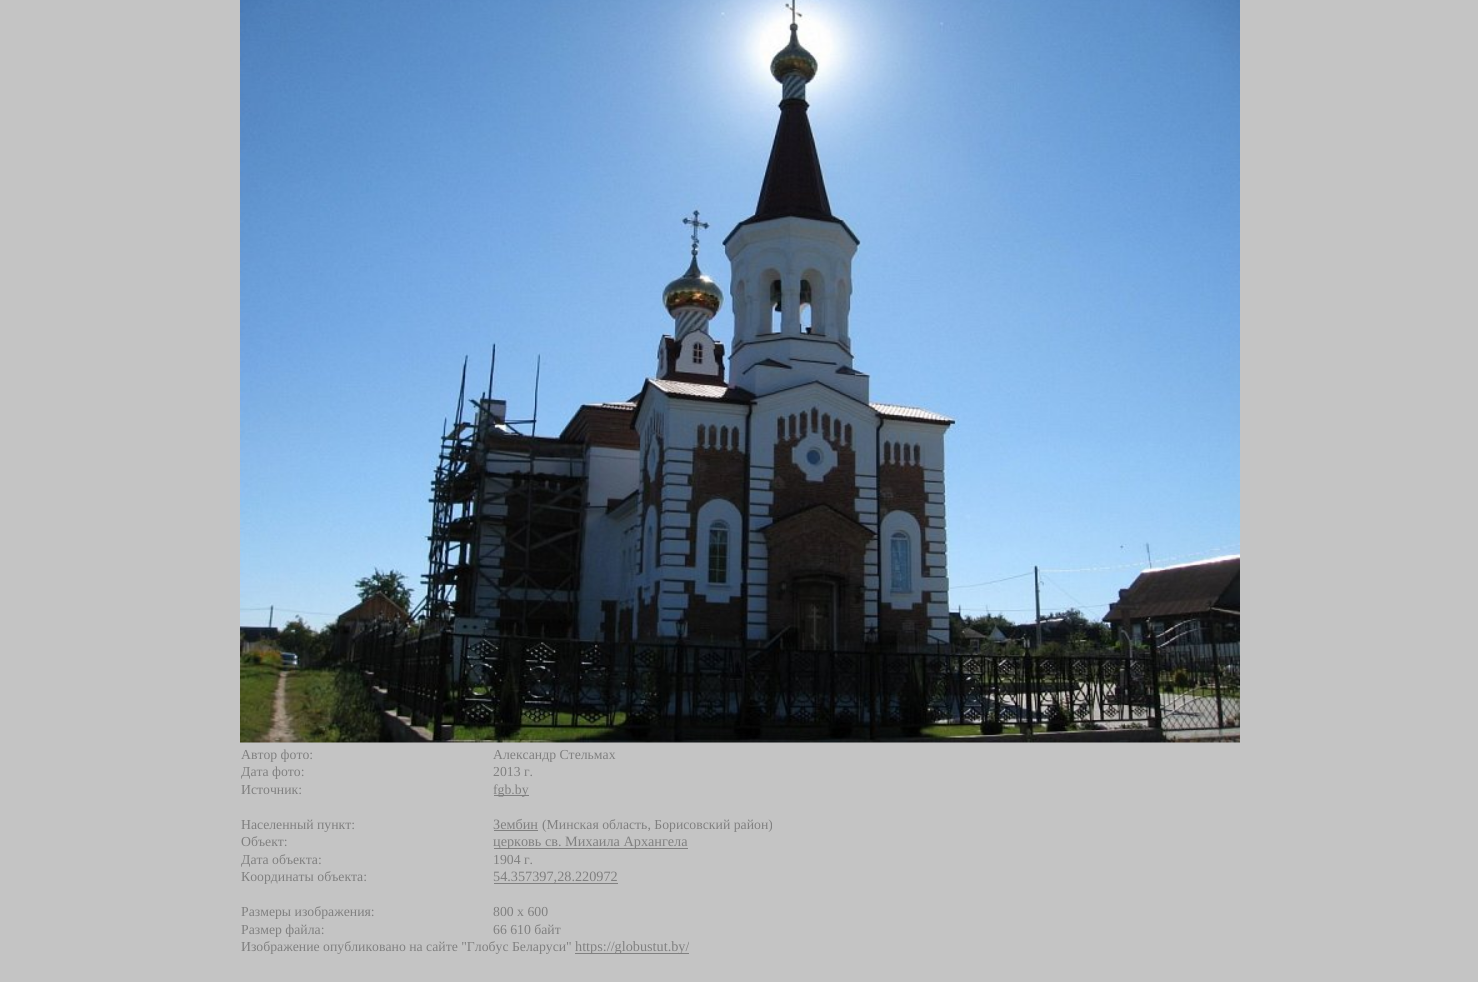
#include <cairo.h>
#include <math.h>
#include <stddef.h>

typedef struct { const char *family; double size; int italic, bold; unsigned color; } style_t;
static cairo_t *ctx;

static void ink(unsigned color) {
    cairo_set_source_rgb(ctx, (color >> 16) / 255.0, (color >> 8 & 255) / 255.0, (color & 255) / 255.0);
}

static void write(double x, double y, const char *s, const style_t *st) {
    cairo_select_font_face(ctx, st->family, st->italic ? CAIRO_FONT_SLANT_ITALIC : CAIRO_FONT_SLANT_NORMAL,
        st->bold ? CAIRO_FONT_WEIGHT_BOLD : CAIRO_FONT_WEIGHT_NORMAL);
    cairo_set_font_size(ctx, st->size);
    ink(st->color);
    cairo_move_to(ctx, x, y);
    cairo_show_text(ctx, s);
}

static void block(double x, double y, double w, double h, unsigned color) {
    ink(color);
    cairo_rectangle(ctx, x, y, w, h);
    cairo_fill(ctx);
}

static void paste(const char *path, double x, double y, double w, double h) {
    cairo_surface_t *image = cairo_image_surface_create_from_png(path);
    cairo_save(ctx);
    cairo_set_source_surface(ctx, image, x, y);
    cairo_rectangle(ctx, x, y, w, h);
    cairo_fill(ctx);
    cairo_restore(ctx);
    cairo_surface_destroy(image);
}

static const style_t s1 = {"Liberation Serif", 13.75, 0, 0, 0x808080};
static const style_t s2 = {"Liberation Serif", 14.25, 0, 0, 0x808080};

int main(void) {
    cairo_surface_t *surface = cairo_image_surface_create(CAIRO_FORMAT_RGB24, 1478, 982);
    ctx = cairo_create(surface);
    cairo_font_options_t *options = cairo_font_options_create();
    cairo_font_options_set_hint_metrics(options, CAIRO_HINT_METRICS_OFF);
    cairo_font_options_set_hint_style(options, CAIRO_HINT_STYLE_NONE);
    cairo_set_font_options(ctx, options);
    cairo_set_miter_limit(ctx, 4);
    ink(0xc4c4c4);
    cairo_paint(ctx);
    paste("pic1.png", 240, 0, 1000, 743);
    write(241, 759, "Автор фото:", &s1);
    write(493, 759, "Александр Стельмах", &s1);
    write(241, 776, "Дата фото:", &s1);
    write(493, 776, "2013 г.", &s1);
    write(241, 794, "Источник:", &s1);
    block(494, 795, 35, 1, 0x808080);
    write(493, 794, "fgb.by", &s1);
    write(241, 829, "Населенный пункт:", &s1);
    write(493, 829, "Зембин", &s2);
    block(494, 830, 44, 1, 0x808080);
    write(542, 829, "(Минская область, Борисовский район)", &s1);
    write(241, 846, "Объект:", &s1);
    block(494, 848, 194, 1, 0x808080);
    write(493, 846, "церковь св. Михаила Архангела", &s2);
    write(241, 864, "Дата объекта:", &s1);
    write(493, 864, "1904 г.", &s1);
    write(241, 881, "Координаты объекта:", &s1);
    block(494, 883, 124, 1, 0x808080);
    write(493, 881, "54.357397,28.220972", &s2);
    write(241, 916, "Размеры изображения:", &s1);
    write(493, 916, "800 x 600", &s1);
    write(241, 934, "Размер файла:", &s1);
    write(493, 934, "66 610 байт", &s1);
    write(241, 951, "Изображение опубликовано на сайте \"Глобус Беларуси\"", &s1);
    block(575, 953, 114, 1, 0x808080);
    write(575, 951, "https://globustut.by/", &s2);
    cairo_surface_write_to_png(surface, "screenshot.png");
    cairo_font_options_destroy(options);
    cairo_destroy(ctx);
    cairo_surface_destroy(surface);
    return 0;
}
